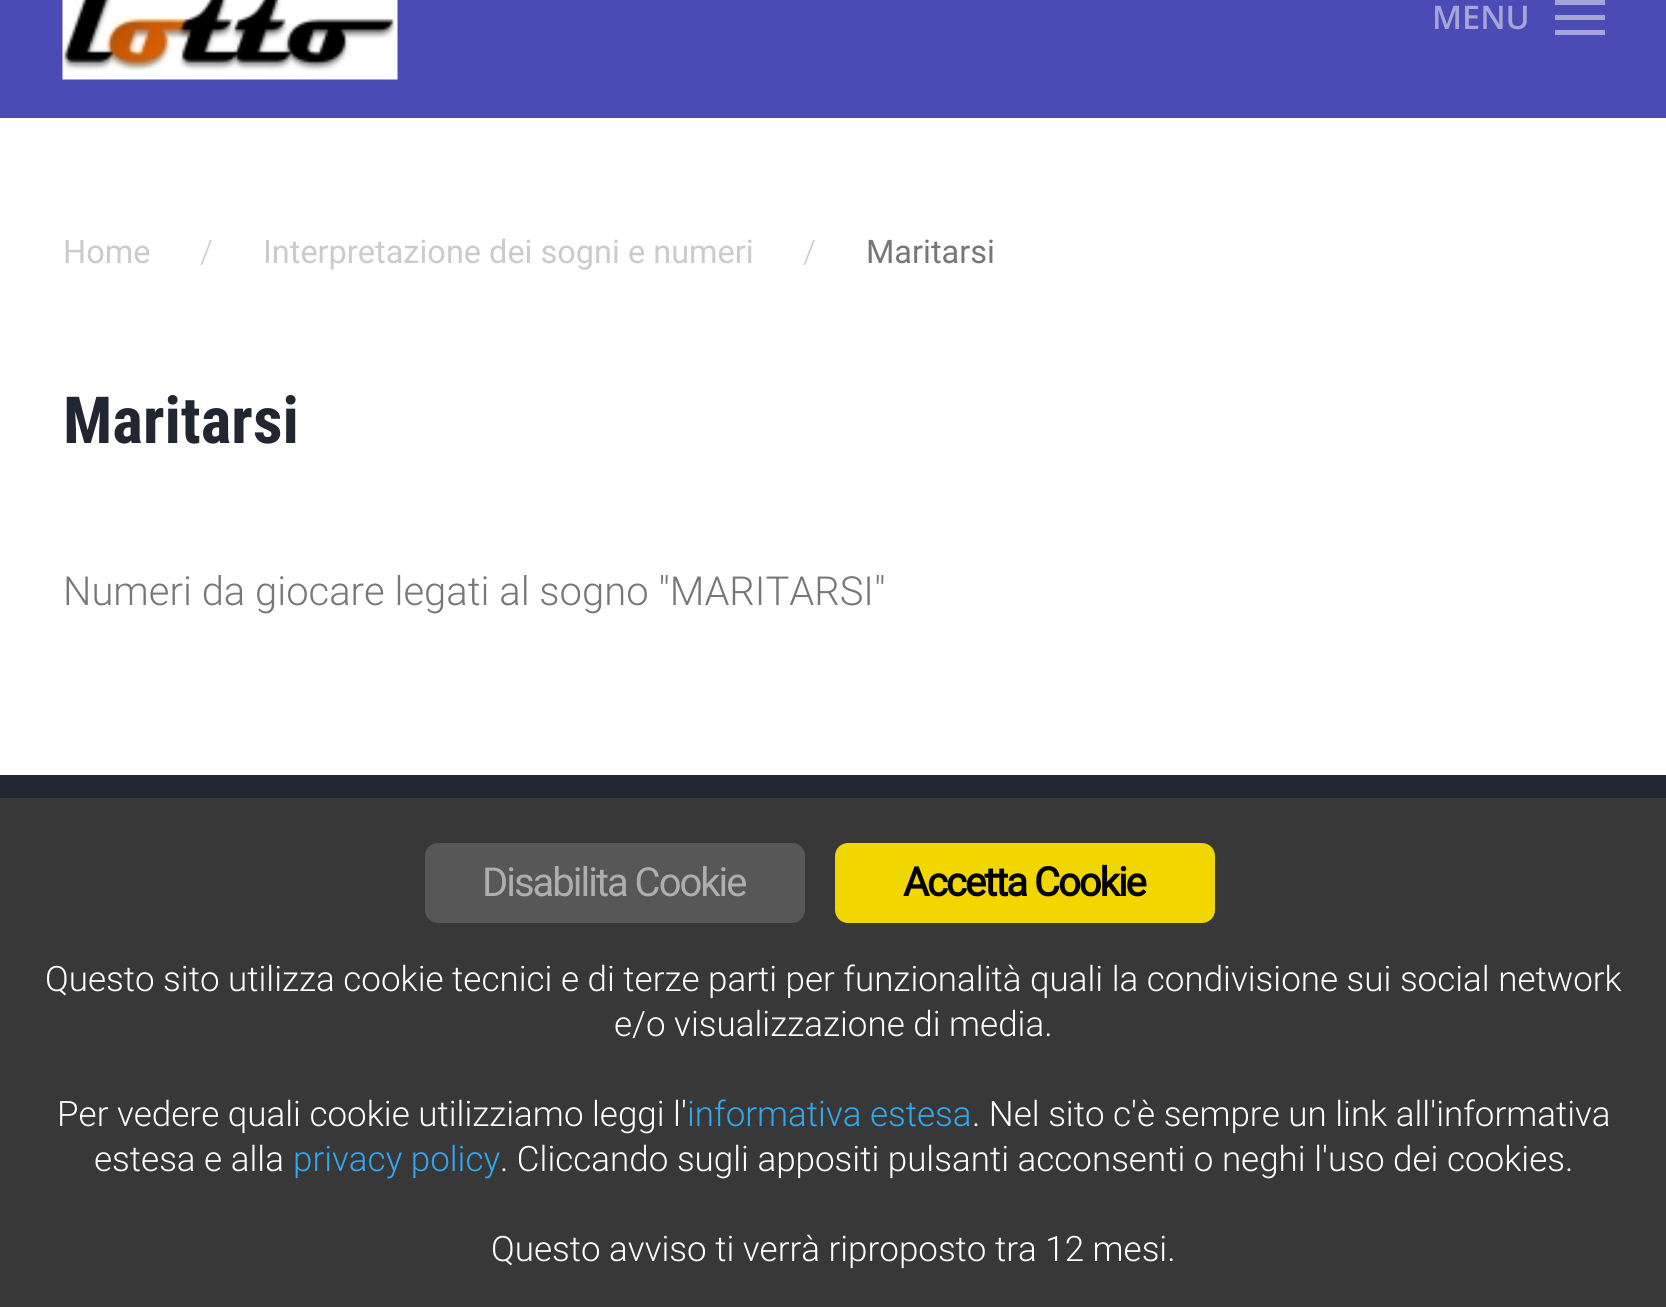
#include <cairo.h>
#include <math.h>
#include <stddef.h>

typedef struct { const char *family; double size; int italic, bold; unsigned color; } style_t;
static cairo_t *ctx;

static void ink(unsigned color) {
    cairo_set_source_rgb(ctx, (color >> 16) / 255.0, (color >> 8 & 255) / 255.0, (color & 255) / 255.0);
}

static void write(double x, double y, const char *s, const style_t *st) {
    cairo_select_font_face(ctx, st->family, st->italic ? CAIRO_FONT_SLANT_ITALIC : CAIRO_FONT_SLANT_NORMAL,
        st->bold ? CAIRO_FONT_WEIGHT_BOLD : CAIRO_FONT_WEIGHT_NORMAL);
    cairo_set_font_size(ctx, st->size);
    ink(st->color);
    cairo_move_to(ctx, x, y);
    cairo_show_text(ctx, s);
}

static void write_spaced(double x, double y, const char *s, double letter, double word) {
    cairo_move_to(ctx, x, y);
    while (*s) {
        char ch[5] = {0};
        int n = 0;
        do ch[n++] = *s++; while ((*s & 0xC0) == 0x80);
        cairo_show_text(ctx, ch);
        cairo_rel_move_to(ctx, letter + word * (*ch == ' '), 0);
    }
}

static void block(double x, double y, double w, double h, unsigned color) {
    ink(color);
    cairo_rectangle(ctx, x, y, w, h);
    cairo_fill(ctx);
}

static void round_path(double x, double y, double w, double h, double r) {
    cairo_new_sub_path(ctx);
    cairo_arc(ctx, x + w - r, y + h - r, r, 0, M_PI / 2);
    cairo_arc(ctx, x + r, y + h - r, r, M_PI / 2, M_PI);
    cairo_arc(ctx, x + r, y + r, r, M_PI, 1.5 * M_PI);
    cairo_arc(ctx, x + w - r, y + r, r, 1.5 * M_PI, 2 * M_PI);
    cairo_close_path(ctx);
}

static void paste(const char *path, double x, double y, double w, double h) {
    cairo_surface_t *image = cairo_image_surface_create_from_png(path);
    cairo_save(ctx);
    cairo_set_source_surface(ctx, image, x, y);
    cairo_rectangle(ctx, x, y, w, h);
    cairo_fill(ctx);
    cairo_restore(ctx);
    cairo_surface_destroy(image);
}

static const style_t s1 = {"Open Sans SemiBold", 32.5, 0, 0, 0xa6a5da};
static const style_t s2 = {"Roboto", 32.5, 0, 0, 0xcbcbcb};
static const style_t s3 = {"Roboto Light", 32.5, 0, 0, 0xcbcbcb};
static const style_t s4 = {"Roboto", 32.5, 0, 0, 0x767779};
static const style_t s5 = {"Roboto Condensed", 65, 0, 1, 0x222631};
static const style_t s6 = {"Roboto Light", 40, 0, 0, 0x767779};
static const style_t s7 = {"Roboto Light", 35, 0, 0, 0xffffff};
static const style_t s8 = {"Roboto Light", 35, 0, 0, 0x31a8f0};

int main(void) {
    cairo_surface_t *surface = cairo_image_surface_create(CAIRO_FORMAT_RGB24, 1666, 1307);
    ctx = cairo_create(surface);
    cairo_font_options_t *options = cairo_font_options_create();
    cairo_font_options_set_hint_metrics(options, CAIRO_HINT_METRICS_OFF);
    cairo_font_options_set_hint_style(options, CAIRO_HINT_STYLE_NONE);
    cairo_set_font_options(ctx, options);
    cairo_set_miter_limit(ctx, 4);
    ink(0xffffff);
    cairo_paint(ctx);
    block(0, 0, 1666, 118, 0x4c4ab5);
    paste("pic1.png", 62, 0, 336, 80);
    write(1432, 29, "MENU", &s1);
    block(1555, 0, 50, 5, 0xa6a5da);
    block(1555, 15, 50, 5, 0xa6a5da);
    block(1555, 30, 50, 5, 0xa6a5da);
    write(63, 263, "Home", &s2);
    write(200, 263, "/", &s3);
    write(263, 263, "Interpretazione dei sogni e numeri", &s2);
    write(803, 263, "/", &s3);
    write(866, 263, "Maritarsi", &s4);
    write(63, 443, "Maritarsi", &s5);
    write(63, 605, "Numeri da giocare legati al sogno \"MARITARSI\"", &s6);
    block(0, 775, 1666, 23, 0x222631);
    block(0, 798, 1666, 509, 0x383838);
    ink(0x575757);
    round_path(425, 843, 380, 80, 13);
    cairo_fill(ctx);
    cairo_select_font_face(ctx, "Roboto", CAIRO_FONT_SLANT_NORMAL, CAIRO_FONT_WEIGHT_NORMAL);
    ink(0xaeaeae);
    write_spaced(482, 896, "Disabilita Cookie", -2, 0);
    ink(0xf1d600);
    round_path(835, 843, 380, 80, 13);
    cairo_fill(ctx);
    cairo_select_font_face(ctx, "Roboto", CAIRO_FONT_SLANT_NORMAL, CAIRO_FONT_WEIGHT_BOLD);
    ink(0x000000);
    write_spaced(903, 896, "Accetta Cookie", -2, 0);
    write(45, 991, "Questo sito utilizza cookie tecnici e di terze parti per funzionalità quali la condivisione sui social network", &s7);
    write(614, 1036, "e/o visualizzazione di media.", &s7);
    write(57, 1126, "Per vedere quali cookie utilizziamo leggi l'", &s7);
    write(687, 1126, "informativa estesa", &s8);
    write(972, 1126, ". Nel sito c'è sempre un link all'informativa", &s7);
    write(94, 1171, "estesa e alla", &s7);
    write(293, 1171, "privacy policy", &s8);
    write(500, 1171, ". Cliccando sugli appositi pulsanti acconsenti o neghi l'uso dei cookies.", &s7);
    write(491, 1261, "Questo avviso ti verrà riproposto tra 12 mesi.", &s7);
    cairo_surface_write_to_png(surface, "screenshot.png");
    cairo_font_options_destroy(options);
    cairo_destroy(ctx);
    cairo_surface_destroy(surface);
    return 0;
}
